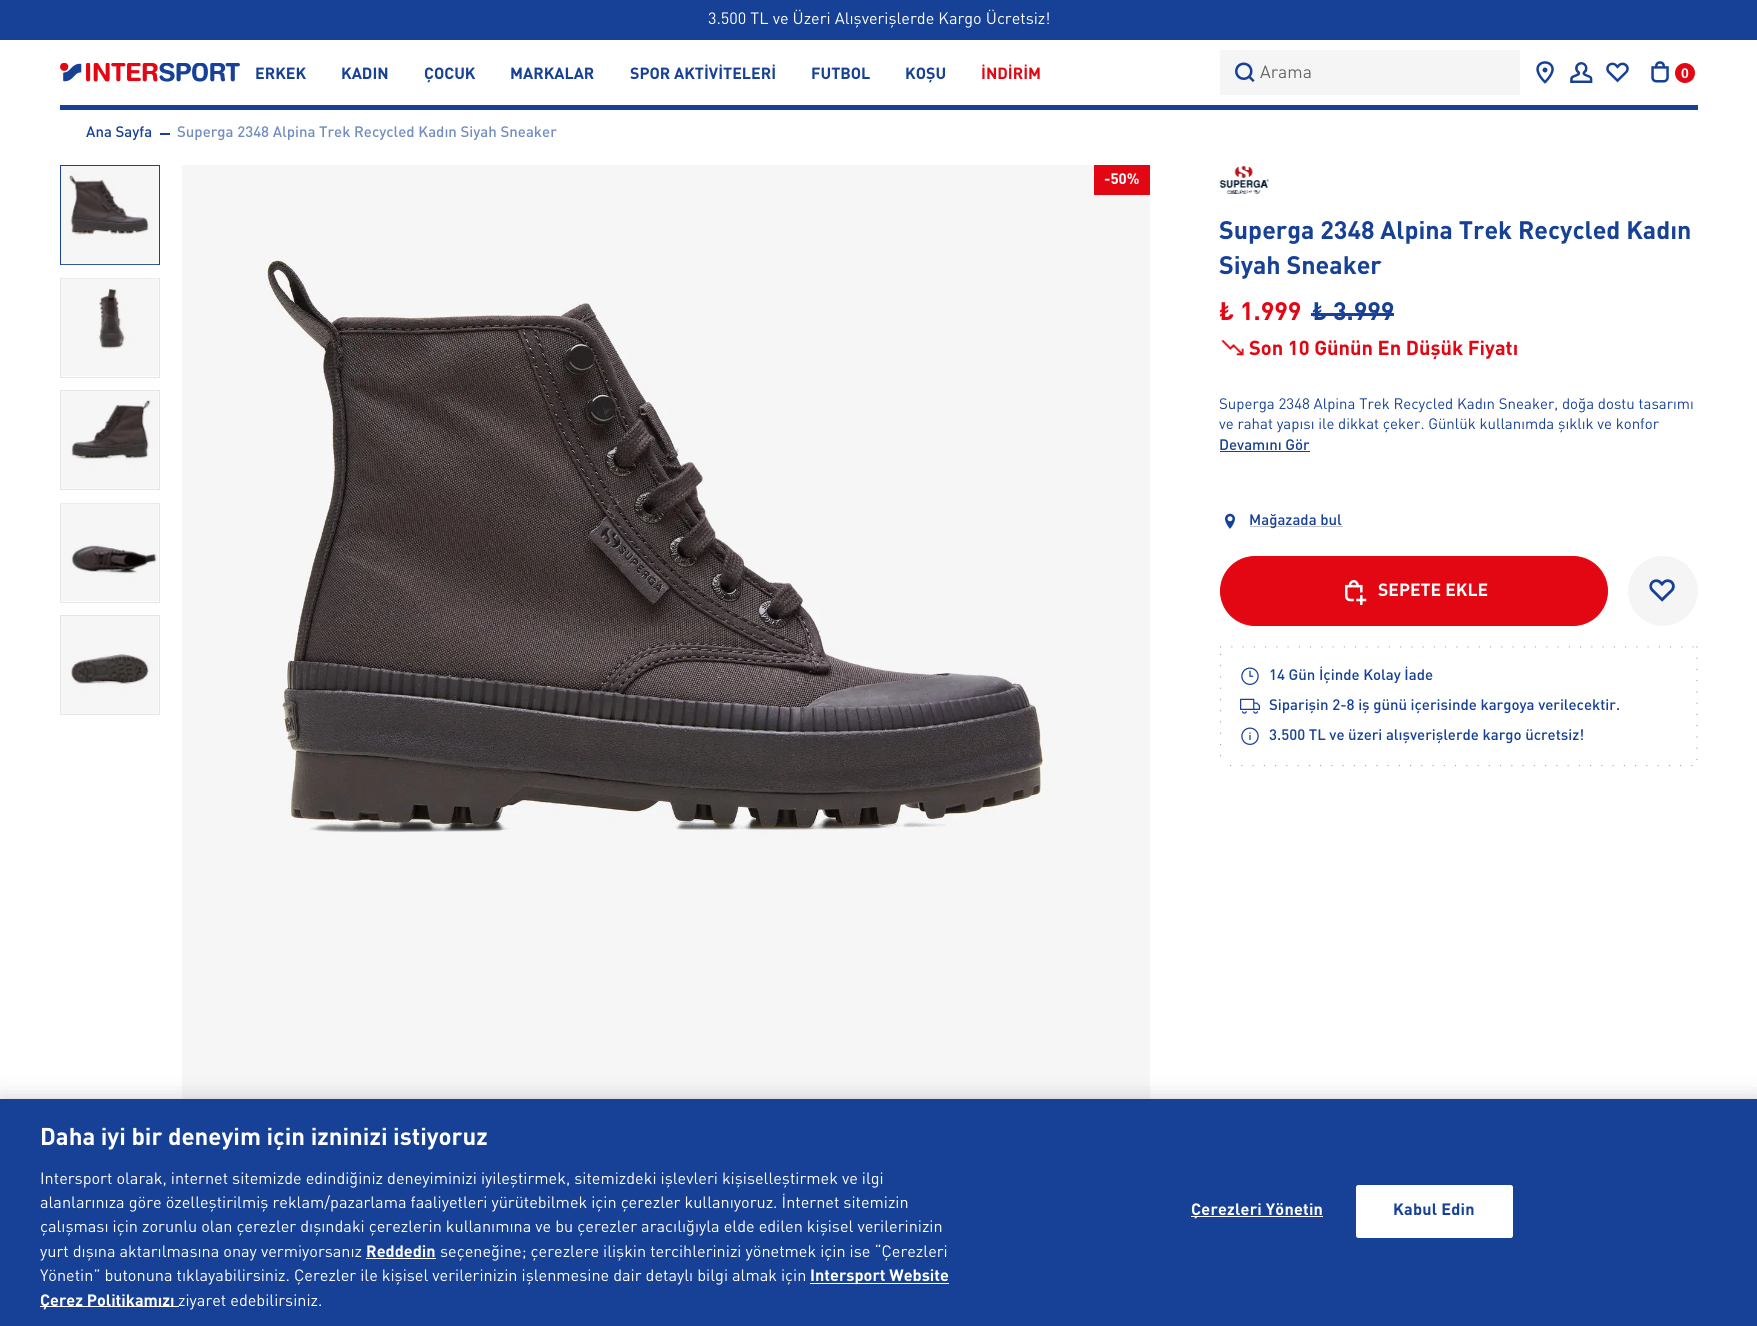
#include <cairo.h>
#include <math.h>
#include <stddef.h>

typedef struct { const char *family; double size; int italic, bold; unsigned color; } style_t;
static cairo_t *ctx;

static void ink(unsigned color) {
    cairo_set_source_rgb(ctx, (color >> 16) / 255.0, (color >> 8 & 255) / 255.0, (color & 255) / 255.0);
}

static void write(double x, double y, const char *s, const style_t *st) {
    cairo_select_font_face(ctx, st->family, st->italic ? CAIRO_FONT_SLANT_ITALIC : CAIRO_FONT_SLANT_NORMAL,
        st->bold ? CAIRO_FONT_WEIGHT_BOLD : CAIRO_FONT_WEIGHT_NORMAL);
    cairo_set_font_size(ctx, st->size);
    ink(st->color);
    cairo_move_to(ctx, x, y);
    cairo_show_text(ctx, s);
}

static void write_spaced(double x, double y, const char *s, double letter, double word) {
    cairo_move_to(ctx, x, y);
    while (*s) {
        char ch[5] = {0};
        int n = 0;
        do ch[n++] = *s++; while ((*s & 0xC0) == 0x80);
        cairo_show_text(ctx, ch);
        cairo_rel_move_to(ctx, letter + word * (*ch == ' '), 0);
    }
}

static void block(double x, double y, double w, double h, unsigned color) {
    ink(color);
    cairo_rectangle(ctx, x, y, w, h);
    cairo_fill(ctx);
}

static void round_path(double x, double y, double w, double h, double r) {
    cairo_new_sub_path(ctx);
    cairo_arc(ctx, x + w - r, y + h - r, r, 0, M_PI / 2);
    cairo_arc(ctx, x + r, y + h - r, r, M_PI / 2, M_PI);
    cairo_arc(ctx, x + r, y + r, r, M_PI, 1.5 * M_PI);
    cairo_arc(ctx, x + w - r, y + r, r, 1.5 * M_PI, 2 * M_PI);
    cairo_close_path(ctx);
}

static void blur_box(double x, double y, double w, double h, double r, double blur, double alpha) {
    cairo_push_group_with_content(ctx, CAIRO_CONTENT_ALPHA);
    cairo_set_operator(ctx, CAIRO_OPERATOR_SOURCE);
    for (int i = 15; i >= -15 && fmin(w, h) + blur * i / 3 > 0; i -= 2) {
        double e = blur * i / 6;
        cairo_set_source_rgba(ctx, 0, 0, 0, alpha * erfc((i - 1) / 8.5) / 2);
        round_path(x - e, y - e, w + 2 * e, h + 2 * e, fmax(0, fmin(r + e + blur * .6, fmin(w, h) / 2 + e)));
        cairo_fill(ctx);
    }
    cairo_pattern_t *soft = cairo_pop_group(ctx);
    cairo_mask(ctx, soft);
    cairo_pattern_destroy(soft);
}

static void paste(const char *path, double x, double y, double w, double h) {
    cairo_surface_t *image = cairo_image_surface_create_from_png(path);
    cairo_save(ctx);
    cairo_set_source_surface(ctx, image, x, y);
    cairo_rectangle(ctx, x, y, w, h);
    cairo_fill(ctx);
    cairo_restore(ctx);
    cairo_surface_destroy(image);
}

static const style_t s1 = {"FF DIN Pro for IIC", 16.25, 0, 0, 0xffffff};
static const style_t s2 = {"FF DIN Pro for IIC", 16, 0, 1, 0x164196};
static const style_t s3 = {"FF DIN Pro for IIC", 16, 0, 1, 0xe30613};
static const style_t s4 = {"FF DIN Pro for IIC", 17.5, 0, 0, 0x666666};
static const style_t s5 = {"Liberation Sans", 14, 0, 1, 0xffffff};
static const style_t s6 = {"FF DIN Pro for IIC Medium", 15, 0, 0, 0x164196};
static const style_t s7 = {"FF DIN Pro for IIC Medium", 15, 0, 0, 0x738dc0};
static const style_t s8 = {"FF DIN Pro for IIC", 15, 0, 1, 0xffffff};
static const style_t s9 = {"FF DIN Pro for IIC", 25, 0, 1, 0x164196};
static const style_t s10 = {"FF DIN Pro for IIC", 25, 0, 1, 0xe30613};
static const style_t s11 = {"FF DIN Pro for IIC", 20, 0, 1, 0xe30613};
static const style_t s12 = {"FF DIN Pro for IIC", 15, 0, 0, 0x164196};
static const style_t s13 = {"FF DIN Pro for IIC", 17.5, 0, 1, 0xffffff};
static const style_t s14 = {"FF DIN Pro for IIC", 24, 0, 1, 0xffffff};
static const style_t s15 = {"FF DIN Pro for IIC", 16.25, 0, 1, 0xffffff};

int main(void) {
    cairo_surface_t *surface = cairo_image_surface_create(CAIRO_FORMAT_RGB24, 1757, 1326);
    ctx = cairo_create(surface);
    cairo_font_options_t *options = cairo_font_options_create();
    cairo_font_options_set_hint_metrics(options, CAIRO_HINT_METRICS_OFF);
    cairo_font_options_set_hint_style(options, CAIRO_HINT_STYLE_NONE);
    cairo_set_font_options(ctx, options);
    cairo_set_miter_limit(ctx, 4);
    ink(0xffffff);
    cairo_paint(ctx);
    block(0, 0, 1757, 40, 0x164196);
    write(708, 24, "3.500 TL ve Üzeri Alışverişlerde Kargo Ücretsiz!", &s1);
    paste("pic1.png", 60, 63, 180, 19);
    write(255, 79, "ERKEK", &s2);
    write(341, 79, "KADIN", &s2);
    write(424, 79, "ÇOCUK", &s2);
    write(510, 79, "MARKALAR", &s2);
    write(630, 79, "SPOR AKTİVİTELERİ", &s2);
    write(811, 79, "FUTBOL", &s2);
    write(905, 79, "KOŞU", &s2);
    write(981, 79, "İNDİRİM", &s3);
    block(1220, 50, 300, 45, 0xf5f5f5);
    paste("pic2.png", 1235, 62, 20, 20);
    write(1260, 78, "Arama", &s4);
    paste("pic3.png", 1536, 61, 18, 23);
    paste("pic4.png", 1570, 62, 23, 21);
    paste("pic5.png", 1606, 62, 23, 21);
    paste("pic6.png", 1651, 61, 18, 22);
    ink(0xe30613);
    cairo_arc(ctx, 1685, 73, 10, 0, 2 * M_PI);
    cairo_fill(ctx);
    write(1681, 78, "0", &s5);
    block(60, 105, 1638, 5, 0x164196);
    write(86, 137, "Ana Sayfa", &s6);
    block(160, 133, 10, 2, 0x164196);
    write(177, 137, "Superga 2348 Alpina Trek Recycled Kadın Siyah Sneaker", &s7);
    cairo_rectangle(ctx, 60.5, 165.5, 99, 99);
    ink(0x164196);
    cairo_set_line_width(ctx, 1);
    cairo_stroke(ctx);
    paste("pic7.png", 61, 166, 98, 99);
    cairo_rectangle(ctx, 60.5, 278.5, 99, 99);
    ink(0xe5e5e5);
    cairo_stroke(ctx);
    paste("pic8.png", 61, 278, 98, 98);
    cairo_rectangle(ctx, 60.5, 390.5, 99, 99);
    cairo_stroke(ctx);
    paste("pic9.png", 61, 391, 98, 98);
    cairo_rectangle(ctx, 60.5, 503.5, 99, 99);
    cairo_stroke(ctx);
    paste("pic10.png", 61, 503, 98, 98);
    cairo_rectangle(ctx, 60.5, 615.5, 99, 99);
    cairo_stroke(ctx);
    paste("pic11.png", 61, 616, 98, 98);
    paste("pic12.png", 182, 165, 968, 934);
    block(1094, 165, 56, 30, 0xe30613);
    write(1104, 184, "-50%", &s8);
    paste("pic13.png", 1219, 166, 50, 28);
    write(1219, 239, "Superga 2348 Alpina Trek Recycled Kadın", &s9);
    write(1219, 274, "Siyah Sneaker", &s9);
    write(1219, 320, "₺ 1.999", &s10);
    write(1312, 320, "₺ 3.999", &s9);
    block(1311, 313, 83, 3, 0x164196);
    paste("pic14.png", 1221, 339, 23, 17);
    write(1249, 355, "Son 10 Günün En Düşük Fiyatı", &s11);
    write(1219, 409, "Superga 2348 Alpina Trek Recycled Kadın Sneaker, doğa dostu tasarımı", &s12);
    write(1219, 429, "ve rahat yapısı ile dikkat çeker. Günlük kullanımda şıklık ve konfor", &s12);
    write(1219, 450, "Devamını Gör", &s6);
    block(1220, 451, 90, 1, 0x164196);
    paste("pic15.png", 1225, 513, 10, 16);
    block(1250, 526, 93, 1, 0xc2c2c2);
    write(1249, 525, "Mağazada bul", &s6);
    ink(0xe30613);
    round_path(1220.5, 556.5, 387, 69, 34.5);
    cairo_fill_preserve(ctx);
    cairo_stroke(ctx);
    paste("pic16.png", 1345, 580, 22, 25);
    write(1378, 596, "SEPETE EKLE", &s13);
    ink(0xf5f5f5);
    cairo_new_path(ctx);
    cairo_arc(ctx, 1663, 591, 35, 0, 2 * M_PI);
    cairo_fill(ctx);
    paste("pic17.png", 1649, 579, 26, 23);
    cairo_new_path(ctx);
    cairo_move_to(ctx, 1220.6, 654.4);
    cairo_line_to(ctx, 1220.6, 755.9);
    ink(0x999999);
    cairo_set_line_width(ctx, 1.2);
    cairo_set_line_cap(ctx, CAIRO_LINE_CAP_ROUND);
    cairo_set_dash(ctx, (double[]){0, 11.25}, 2, 0);
    cairo_stroke(ctx);
    cairo_new_path(ctx);
    cairo_move_to(ctx, 1230.6, 765.6);
    cairo_line_to(ctx, 1692.1, 765.6);
    cairo_stroke(ctx);
    cairo_new_path(ctx);
    cairo_move_to(ctx, 1696.9, 646.9);
    cairo_line_to(ctx, 1696.9, 759.6);
    cairo_stroke(ctx);
    cairo_new_path(ctx);
    cairo_move_to(ctx, 1220.6, 646.9);
    cairo_line_to(ctx, 1693.4, 646.9);
    cairo_stroke(ctx);
    paste("pic18.png", 1241, 667, 18, 18);
    write(1269, 680, "14 Gün İçinde Kolay İade", &s6);
    paste("pic19.png", 1240, 698, 20, 16);
    write(1269, 710, "Siparişin 2-8 iş günü içerisinde kargoya verilecektir.", &s6);
    paste("pic20.png", 1241, 727, 18, 18);
    write(1269, 740, "3.500 TL ve üzeri alışverişlerde kargo ücretsiz!", &s6);
    ink(0x000000);
    blur_box(0, 1099, 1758, 227, 0, 11, 0.2);
    block(0, 1099, 1757, 227, 0x164196);
    write(40, 1145, "Daha iyi bir deneyim için izninizi istiyoruz", &s14);
    write(40, 1184, "Intersport olarak, internet sitemizde edindiğiniz deneyiminizi iyileştirmek, sitemizdeki işlevleri kişiselleştirmek ve ilgi", &s1);
    write(40, 1208, "alanlarınıza göre özelleştirilmiş reklam/pazarlama faaliyetleri yürütebilmek için çerezler kullanıyoruz. İnternet sitemizin", &s1);
    write(40, 1232, "çalışması için zorunlu olan çerezler dışındaki çerezlerin kullanımına ve bu çerezler aracılığıyla elde edilen kişisel verilerinizin", &s1);
    write(40, 1257, "yurt dışına aktarılmasına onay vermiyorsanız", &s1);
    write(366, 1257, "Reddedin", &s15);
    block(366, 1258, 70, 1, 0xffffff);
    write(440, 1257, "seçeneğine; çerezlere ilişkin tercihlerinizi yönetmek için ise “Çerezleri", &s1);
    write(40, 1281, "Yönetin” butonuna tıklayabilirsiniz. Çerezler ile kişisel verilerinizin işlenmesine dair detaylı bilgi almak için", &s1);
    block(810, 1283, 139, 1, 0xffffff);
    write(810, 1281, "Intersport Website", &s15);
    block(40, 1306, 139, 1, 0xffffff);
    write(40, 1306, "Çerez Politikamızı", &s15);
    write(178, 1306, "ziyaret edebilirsiniz.", &s1);
    block(1191, 1216, 132, 1, 0xffffff);
    cairo_select_font_face(ctx, "FF DIN Pro for IIC", CAIRO_FONT_SLANT_NORMAL, CAIRO_FONT_WEIGHT_BOLD);
    write_spaced(1191, 1215, "Çerezleri Yönetin", 0.2, 0);
    round_path(1356.5, 1185.5, 156, 52, 2);
    cairo_fill_preserve(ctx);
    cairo_set_line_width(ctx, 1);
    cairo_set_line_cap(ctx, CAIRO_LINE_CAP_BUTT);
    cairo_set_dash(ctx, NULL, 0, 0);
    cairo_stroke(ctx);
    ink(0x164196);
    write_spaced(1393, 1215, "Kabul Edin", 0.2, 0);
    cairo_surface_write_to_png(surface, "screenshot.png");
    cairo_font_options_destroy(options);
    cairo_destroy(ctx);
    cairo_surface_destroy(surface);
    return 0;
}
